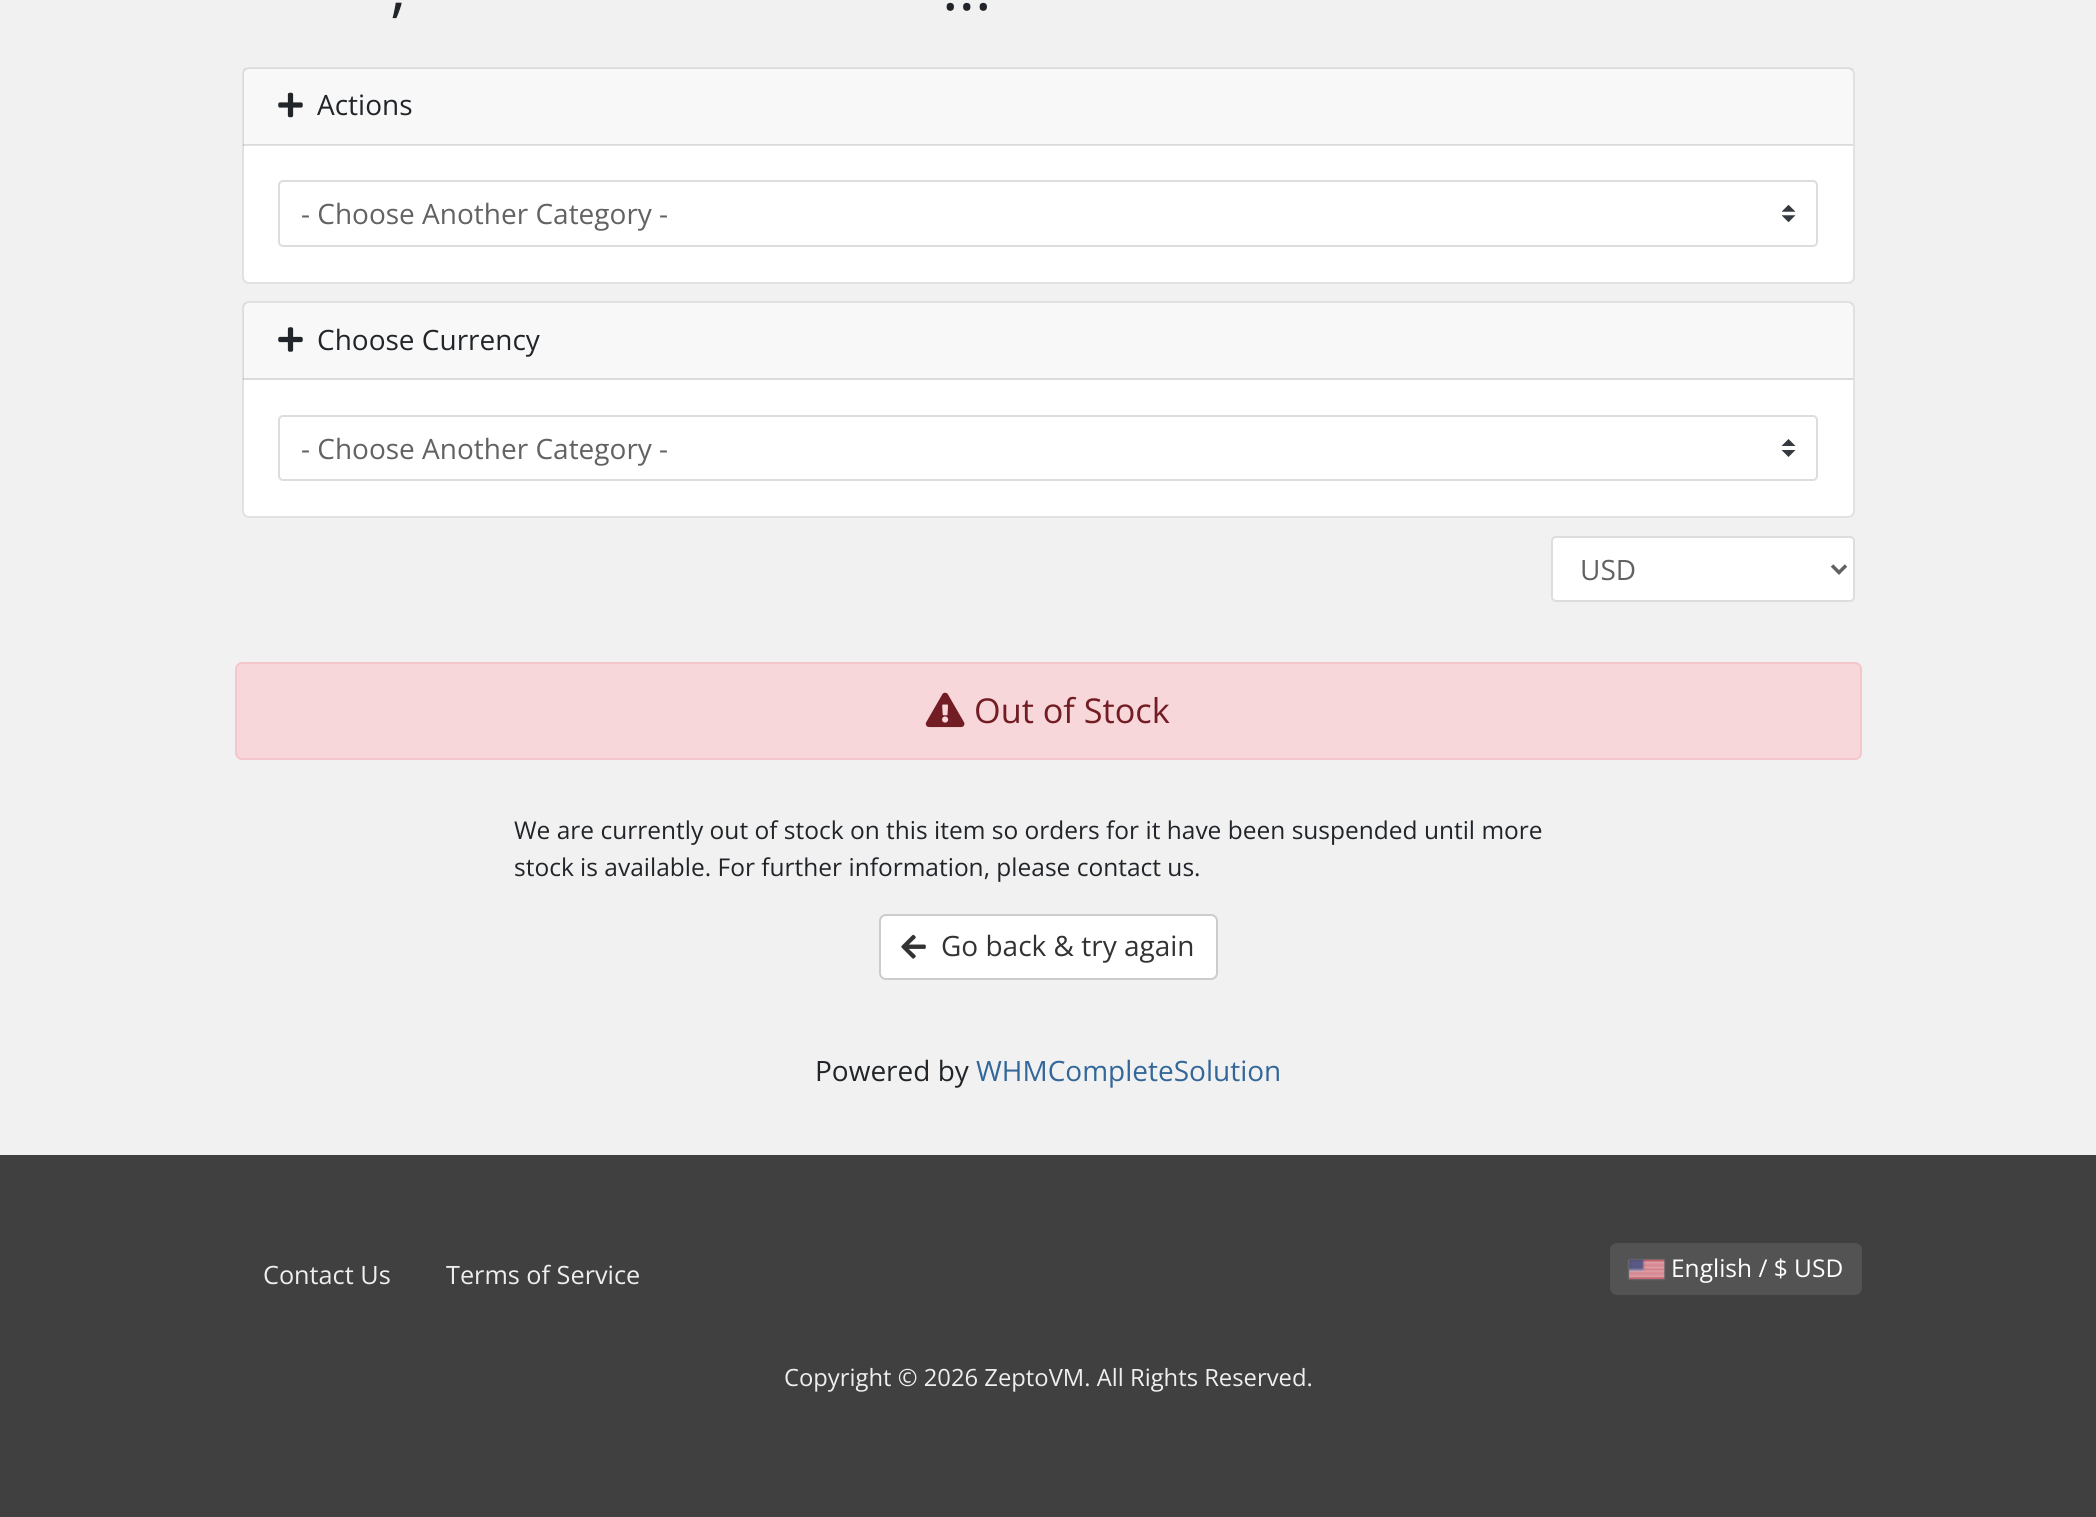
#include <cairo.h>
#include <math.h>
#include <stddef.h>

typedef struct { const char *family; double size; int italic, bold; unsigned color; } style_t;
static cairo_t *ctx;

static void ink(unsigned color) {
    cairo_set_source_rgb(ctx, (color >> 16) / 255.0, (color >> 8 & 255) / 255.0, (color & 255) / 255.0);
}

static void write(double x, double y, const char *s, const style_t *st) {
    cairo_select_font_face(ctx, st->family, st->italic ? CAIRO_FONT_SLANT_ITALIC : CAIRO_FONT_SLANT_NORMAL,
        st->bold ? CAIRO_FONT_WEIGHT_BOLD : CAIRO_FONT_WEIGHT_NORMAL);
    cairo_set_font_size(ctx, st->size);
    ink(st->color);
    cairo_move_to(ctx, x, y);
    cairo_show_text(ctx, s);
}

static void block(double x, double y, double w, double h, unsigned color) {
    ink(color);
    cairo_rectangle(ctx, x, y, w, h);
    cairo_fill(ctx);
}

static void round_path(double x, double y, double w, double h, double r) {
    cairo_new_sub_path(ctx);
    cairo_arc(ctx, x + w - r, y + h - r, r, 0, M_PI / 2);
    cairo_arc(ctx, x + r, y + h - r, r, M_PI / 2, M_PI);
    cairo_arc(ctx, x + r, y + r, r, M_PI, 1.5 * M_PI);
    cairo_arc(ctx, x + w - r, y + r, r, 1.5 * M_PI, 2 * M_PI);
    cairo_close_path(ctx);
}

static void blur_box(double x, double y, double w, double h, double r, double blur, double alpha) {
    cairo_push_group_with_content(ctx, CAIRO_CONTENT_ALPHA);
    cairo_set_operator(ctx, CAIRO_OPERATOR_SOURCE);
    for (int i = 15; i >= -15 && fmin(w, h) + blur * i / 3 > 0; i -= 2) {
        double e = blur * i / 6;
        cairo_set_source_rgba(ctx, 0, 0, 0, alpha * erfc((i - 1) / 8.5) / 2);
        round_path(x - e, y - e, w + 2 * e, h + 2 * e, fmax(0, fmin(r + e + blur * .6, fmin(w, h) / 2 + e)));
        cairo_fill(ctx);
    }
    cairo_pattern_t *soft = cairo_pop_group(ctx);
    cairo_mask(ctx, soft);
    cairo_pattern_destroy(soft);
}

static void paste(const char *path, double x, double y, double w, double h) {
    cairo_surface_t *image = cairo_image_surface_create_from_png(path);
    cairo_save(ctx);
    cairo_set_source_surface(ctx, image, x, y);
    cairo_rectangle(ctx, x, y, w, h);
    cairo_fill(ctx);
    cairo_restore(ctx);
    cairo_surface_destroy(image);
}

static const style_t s1 = {"Open Sans", 63, 0, 0, 0x212529};
static const style_t s2 = {"Open Sans", 28, 0, 0, 0x212529};
static const style_t s3 = {"Open Sans", 28, 0, 0, 0x626262};
static const style_t s4 = {"Open Sans", 34.25, 0, 0, 0x721c24};
static const style_t s5 = {"Open Sans", 24.5, 0, 0, 0x212529};
static const style_t s6 = {"Open Sans", 28, 0, 0, 0x333333};
static const style_t s7 = {"Open Sans", 28, 0, 0, 0x336699};
static const style_t s8 = {"Open Sans", 25.25, 0, 0, 0xeeeeee};
static const style_t s9 = {"Open Sans", 24.5, 0, 0, 0xffffff};
static const style_t s10 = {"Open Sans", 23.8, 0, 0, 0xeeeeee};

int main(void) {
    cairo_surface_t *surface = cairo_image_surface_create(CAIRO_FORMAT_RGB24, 2096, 1517);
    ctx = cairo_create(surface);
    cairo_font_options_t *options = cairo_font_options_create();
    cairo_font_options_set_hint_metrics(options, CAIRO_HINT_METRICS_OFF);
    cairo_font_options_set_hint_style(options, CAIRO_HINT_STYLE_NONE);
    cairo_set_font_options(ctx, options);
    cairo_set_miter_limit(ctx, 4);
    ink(0xf1f1f1);
    cairo_paint(ctx);
    write(390, 10, ",", &s1);
    write(942, 10, "...", &s1);
    ink(0xffffff);
    round_path(242, 67, 1613, 217, 7);
    cairo_fill(ctx);
    round_path(243, 68, 1611, 215, 6);
    cairo_set_source_rgba(ctx, 0, 0, 0, 0.12);
    cairo_stroke(ctx);
    cairo_set_source_rgba(ctx, 0, 0, 0, 0.03);
    cairo_rectangle(ctx, 243, 68, 1610, 77);
    cairo_fill(ctx);
    cairo_set_source_rgba(ctx, 0, 0, 0, 0.12);
    cairo_rectangle(ctx, 243, 144, 1610, 2);
    cairo_fill(ctx);
    paste("pic1.png", 278, 92, 25, 26);
    write(317, 115, "Actions", &s2);
    paste("pic2.png", 1782, 205, 14, 17);
    round_path(279, 181, 1538, 65, 4);
    ink(0xdddddd);
    cairo_stroke(ctx);
    write(301, 224, "- Choose Another Category -", &s3);
    ink(0xffffff);
    round_path(242, 301, 1613, 217, 7);
    cairo_fill(ctx);
    round_path(243, 302, 1611, 215, 6);
    cairo_set_source_rgba(ctx, 0, 0, 0, 0.12);
    cairo_stroke(ctx);
    cairo_set_source_rgba(ctx, 0, 0, 0, 0.03);
    cairo_rectangle(ctx, 243, 303, 1610, 77);
    cairo_fill(ctx);
    cairo_set_source_rgba(ctx, 0, 0, 0, 0.12);
    cairo_rectangle(ctx, 243, 378, 1610, 2);
    cairo_fill(ctx);
    paste("pic3.png", 278, 327, 25, 25);
    write(317, 350, "Choose Currency", &s2);
    ink(0x343a40);
    cairo_new_path(ctx);
    cairo_move_to(ctx, 1788.5, 439);
    cairo_line_to(ctx, 1781.5, 446);
    cairo_line_to(ctx, 1795.5, 446);
    cairo_close_path(ctx);
    cairo_move_to(ctx, 1788.5, 457);
    cairo_line_to(ctx, 1781.5, 450);
    cairo_line_to(ctx, 1795.5, 450);
    cairo_close_path(ctx);
    cairo_fill(ctx);
    round_path(279, 416, 1538, 64, 4);
    ink(0xdddddd);
    cairo_stroke(ctx);
    write(301, 459, "- Choose Another Category -", &s3);
    ink(0xffffff);
    round_path(1552, 537, 302, 64, 4);
    cairo_fill_preserve(ctx);
    ink(0xdddddd);
    cairo_stroke(ctx);
    cairo_new_path(ctx);
    cairo_move_to(ctx, 1832, 565.5);
    cairo_line_to(ctx, 1839, 572.5);
    cairo_line_to(ctx, 1846, 565.5);
    ink(0x626262);
    cairo_set_line_width(ctx, 3.5);
    cairo_stroke(ctx);
    write(1580, 580, "USD", &s3);
    ink(0xf8d7da);
    round_path(236, 663, 1625, 96, 6);
    cairo_fill_preserve(ctx);
    ink(0xf5c6cb);
    cairo_set_line_width(ctx, 2);
    cairo_stroke(ctx);
    paste("pic4.png", 925, 692, 40, 36);
    write(974, 723, "Out of Stock", &s4);
    write(514, 839, "We are currently out of stock on this item so orders for it have been suspended until more", &s5);
    write(514, 876, "stock is available. For further information, please contact us.", &s5);
    ink(0xffffff);
    round_path(880, 915, 337, 64, 6);
    cairo_fill_preserve(ctx);
    ink(0xcccccc);
    cairo_stroke(ctx);
    paste("pic5.png", 901, 934, 25, 25);
    write(941, 956, "Go back & try again", &s6);
    write(815, 1081, "Powered by", &s2);
    write(976, 1081, "WHMCompleteSolution", &s7);
    block(0, 1155, 2096, 362, 0x404040);
    write(263, 1284, "Contact Us", &s8);
    write(446, 1284, "Terms of Service", &s8);
    ink(0x535353);
    round_path(1610, 1243, 252, 52, 7);
    cairo_fill(ctx);
    ink(0x888888);
    blur_box(1629, 1260, 35, 19, 0, 1, 1);
    paste("pic6.png", 1629, 1259, 36, 20);
    write(1671, 1277, "English / $ USD", &s9);
    write(784, 1386, "Copyright © 2026 ZeptoVM. All Rights Reserved.", &s10);
    cairo_surface_write_to_png(surface, "screenshot.png");
    cairo_font_options_destroy(options);
    cairo_destroy(ctx);
    cairo_surface_destroy(surface);
    return 0;
}
